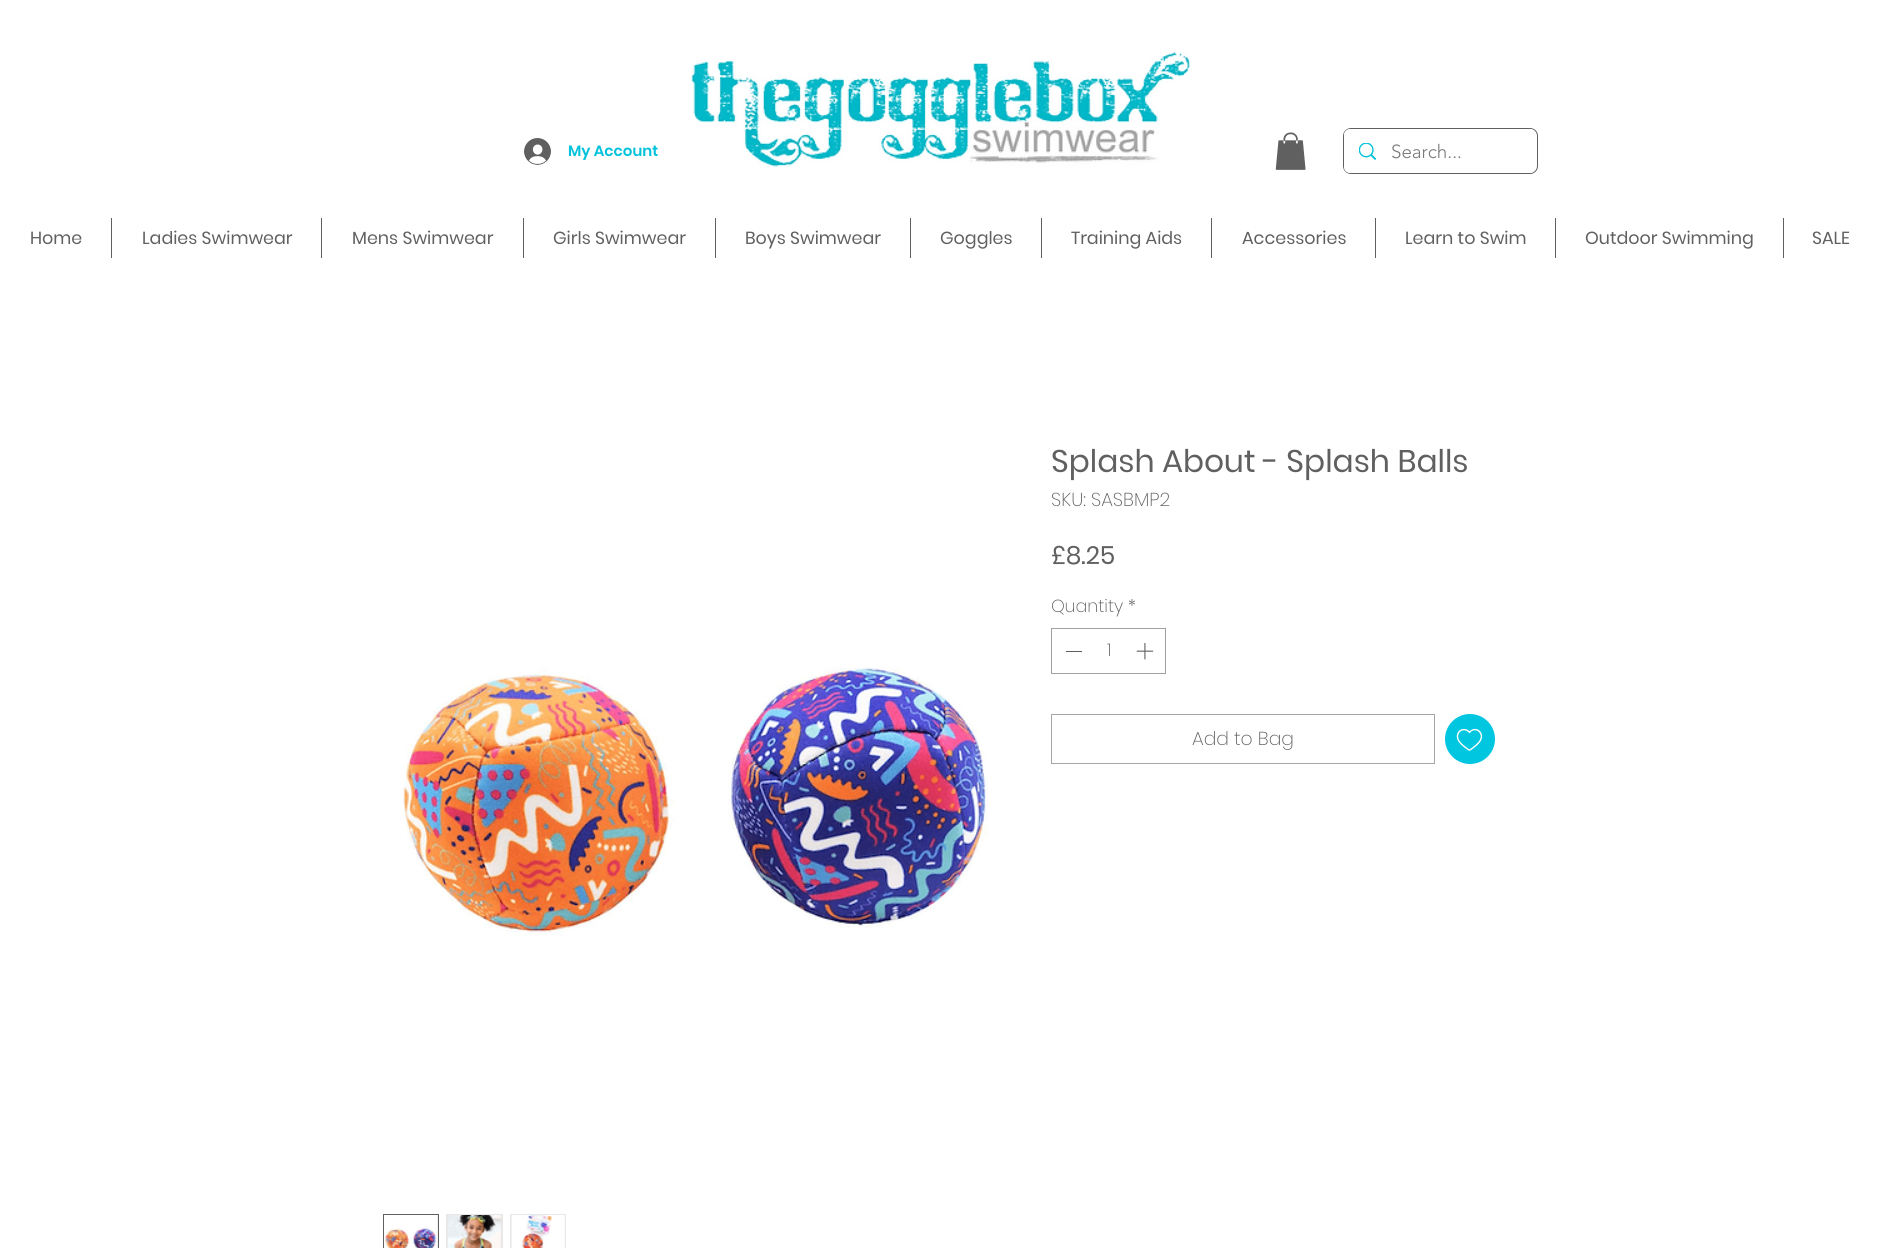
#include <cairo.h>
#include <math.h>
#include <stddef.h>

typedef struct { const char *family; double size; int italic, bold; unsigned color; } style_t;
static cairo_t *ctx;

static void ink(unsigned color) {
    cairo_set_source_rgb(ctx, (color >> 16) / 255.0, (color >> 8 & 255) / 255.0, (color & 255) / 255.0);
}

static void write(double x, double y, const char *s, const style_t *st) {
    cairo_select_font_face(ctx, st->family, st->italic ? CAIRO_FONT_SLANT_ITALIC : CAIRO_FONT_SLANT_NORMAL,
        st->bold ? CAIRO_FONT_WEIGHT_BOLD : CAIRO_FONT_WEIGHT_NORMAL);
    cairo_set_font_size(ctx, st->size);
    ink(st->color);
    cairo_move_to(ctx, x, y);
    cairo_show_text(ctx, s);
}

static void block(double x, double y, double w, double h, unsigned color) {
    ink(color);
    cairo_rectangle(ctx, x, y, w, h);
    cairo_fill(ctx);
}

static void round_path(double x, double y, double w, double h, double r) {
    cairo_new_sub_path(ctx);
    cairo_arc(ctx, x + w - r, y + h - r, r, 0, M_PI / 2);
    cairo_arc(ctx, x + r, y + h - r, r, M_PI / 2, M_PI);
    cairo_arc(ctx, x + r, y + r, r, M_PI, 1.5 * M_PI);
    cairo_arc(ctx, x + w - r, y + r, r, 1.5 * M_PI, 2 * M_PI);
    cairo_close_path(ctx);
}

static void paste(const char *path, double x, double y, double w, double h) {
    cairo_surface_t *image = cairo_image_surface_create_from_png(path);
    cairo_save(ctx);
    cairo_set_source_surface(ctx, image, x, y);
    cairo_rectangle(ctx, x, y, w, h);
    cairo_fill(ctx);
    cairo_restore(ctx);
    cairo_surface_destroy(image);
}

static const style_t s1 = {"Poppins SemiBold", 15, 0, 0, 0x00c2db};
static const style_t s2 = {"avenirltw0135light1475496 Light", 18.75, 0, 0, 0x787878};
static const style_t s3 = {"Poppins", 17.5, 0, 0, 0x616060};
static const style_t s4 = {"Poppins", 31.25, 0, 0, 0x616060};
static const style_t s5 = {"Poppins ExtraLight", 18.75, 0, 0, 0x616060};
static const style_t s6 = {"Poppins", 25, 0, 0, 0x616060};
static const style_t s7 = {"Poppins ExtraLight", 17.5, 0, 0, 0x616060};

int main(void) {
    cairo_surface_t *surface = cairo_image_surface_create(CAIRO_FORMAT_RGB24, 1878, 1248);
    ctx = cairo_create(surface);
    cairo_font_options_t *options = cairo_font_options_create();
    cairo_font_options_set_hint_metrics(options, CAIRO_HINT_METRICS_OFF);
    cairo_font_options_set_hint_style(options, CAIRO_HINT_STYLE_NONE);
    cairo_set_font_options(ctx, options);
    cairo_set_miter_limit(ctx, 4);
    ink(0xffffff);
    cairo_paint(ctx);
    paste("pic1.png", 524, 138, 27, 27);
    write(568, 156, "My Account", &s1);
    paste("pic2.png", 691, 52, 500, 115);
    paste("pic3.png", 1275, 132, 31, 38);
    round_path(1343.5, 128.5, 194, 45, 7.5);
    ink(0x616060);
    cairo_set_line_width(ctx, 1);
    cairo_stroke(ctx);
    ink(0xffffff);
    round_path(1344, 129, 192, 44, 6);
    cairo_fill(ctx);
    paste("pic4.png", 1359, 143, 17, 17);
    write(1391, 158, "Search...", &s2);
    write(30, 244, "Home", &s3);
    block(111, 218, 1, 40, 0x616060);
    write(142, 244, "Ladies Swimwear", &s3);
    block(321, 218, 1, 40, 0x616060);
    write(352, 244, "Mens Swimwear", &s3);
    block(523, 218, 1, 40, 0x616060);
    write(553, 244, "Girls Swimwear", &s3);
    block(715, 218, 1, 40, 0x616060);
    write(745, 244, "Boys Swimwear", &s3);
    block(910, 218, 1, 40, 0x616060);
    write(940, 244, "Goggles", &s3);
    block(1041, 218, 1, 40, 0x616060);
    write(1071, 244, "Training Aids", &s3);
    block(1211, 218, 1, 40, 0x616060);
    write(1242, 244, "Accessories", &s3);
    block(1375, 218, 1, 40, 0x616060);
    write(1405, 244, "Learn to Swim", &s3);
    block(1555, 218, 1, 40, 0x616060);
    write(1585, 244, "Outdoor Swimming", &s3);
    block(1783, 218, 1, 40, 0x616060);
    write(1812, 244, "SALE", &s3);
    write(1051, 472, "Splash About - Splash Balls", &s4);
    write(1051, 506, "SKU: SASBMP2", &s5);
    write(1051, 564, "£8.25", &s6);
    write(1051, 612, "Quantity *", &s7);
    cairo_rectangle(ctx, 1051.5, 628.5, 114, 45);
    ink(0xa0a0a0);
    cairo_stroke(ctx);
    block(1066, 651, 16, 1, 0x616060);
    write(1107, 656, "1", &s7);
    paste("pic5.png", 1136, 643, 18, 17);
    cairo_rectangle(ctx, 1051.5, 714.5, 383, 49);
    ink(0xa6a6a6);
    cairo_stroke(ctx);
    write(1192, 745, "Add to Bag", &s5);
    ink(0x00c6e0);
    cairo_new_path(ctx);
    cairo_arc(ctx, 1470, 739, 25, 0, 2 * M_PI);
    cairo_fill(ctx);
    paste("pic6.png", 1456, 728, 27, 23);
    paste("pic7.png", 403, 667, 585, 269);
    block(436, 1215, 2, 33, 0xe8e6e6);
    cairo_rectangle(ctx, 383.5, 1214.5, 55, 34);
    ink(0x616060);
    cairo_stroke(ctx);
    paste("pic8.png", 384, 1215, 54, 33);
    block(446, 1214, 57, 34, 0xe8e6e6);
    paste("pic9.png", 447, 1215, 55, 33);
    block(510, 1214, 56, 34, 0xe8e6e6);
    paste("pic10.png", 511, 1215, 54, 33);
    cairo_surface_write_to_png(surface, "screenshot.png");
    cairo_font_options_destroy(options);
    cairo_destroy(ctx);
    cairo_surface_destroy(surface);
    return 0;
}
